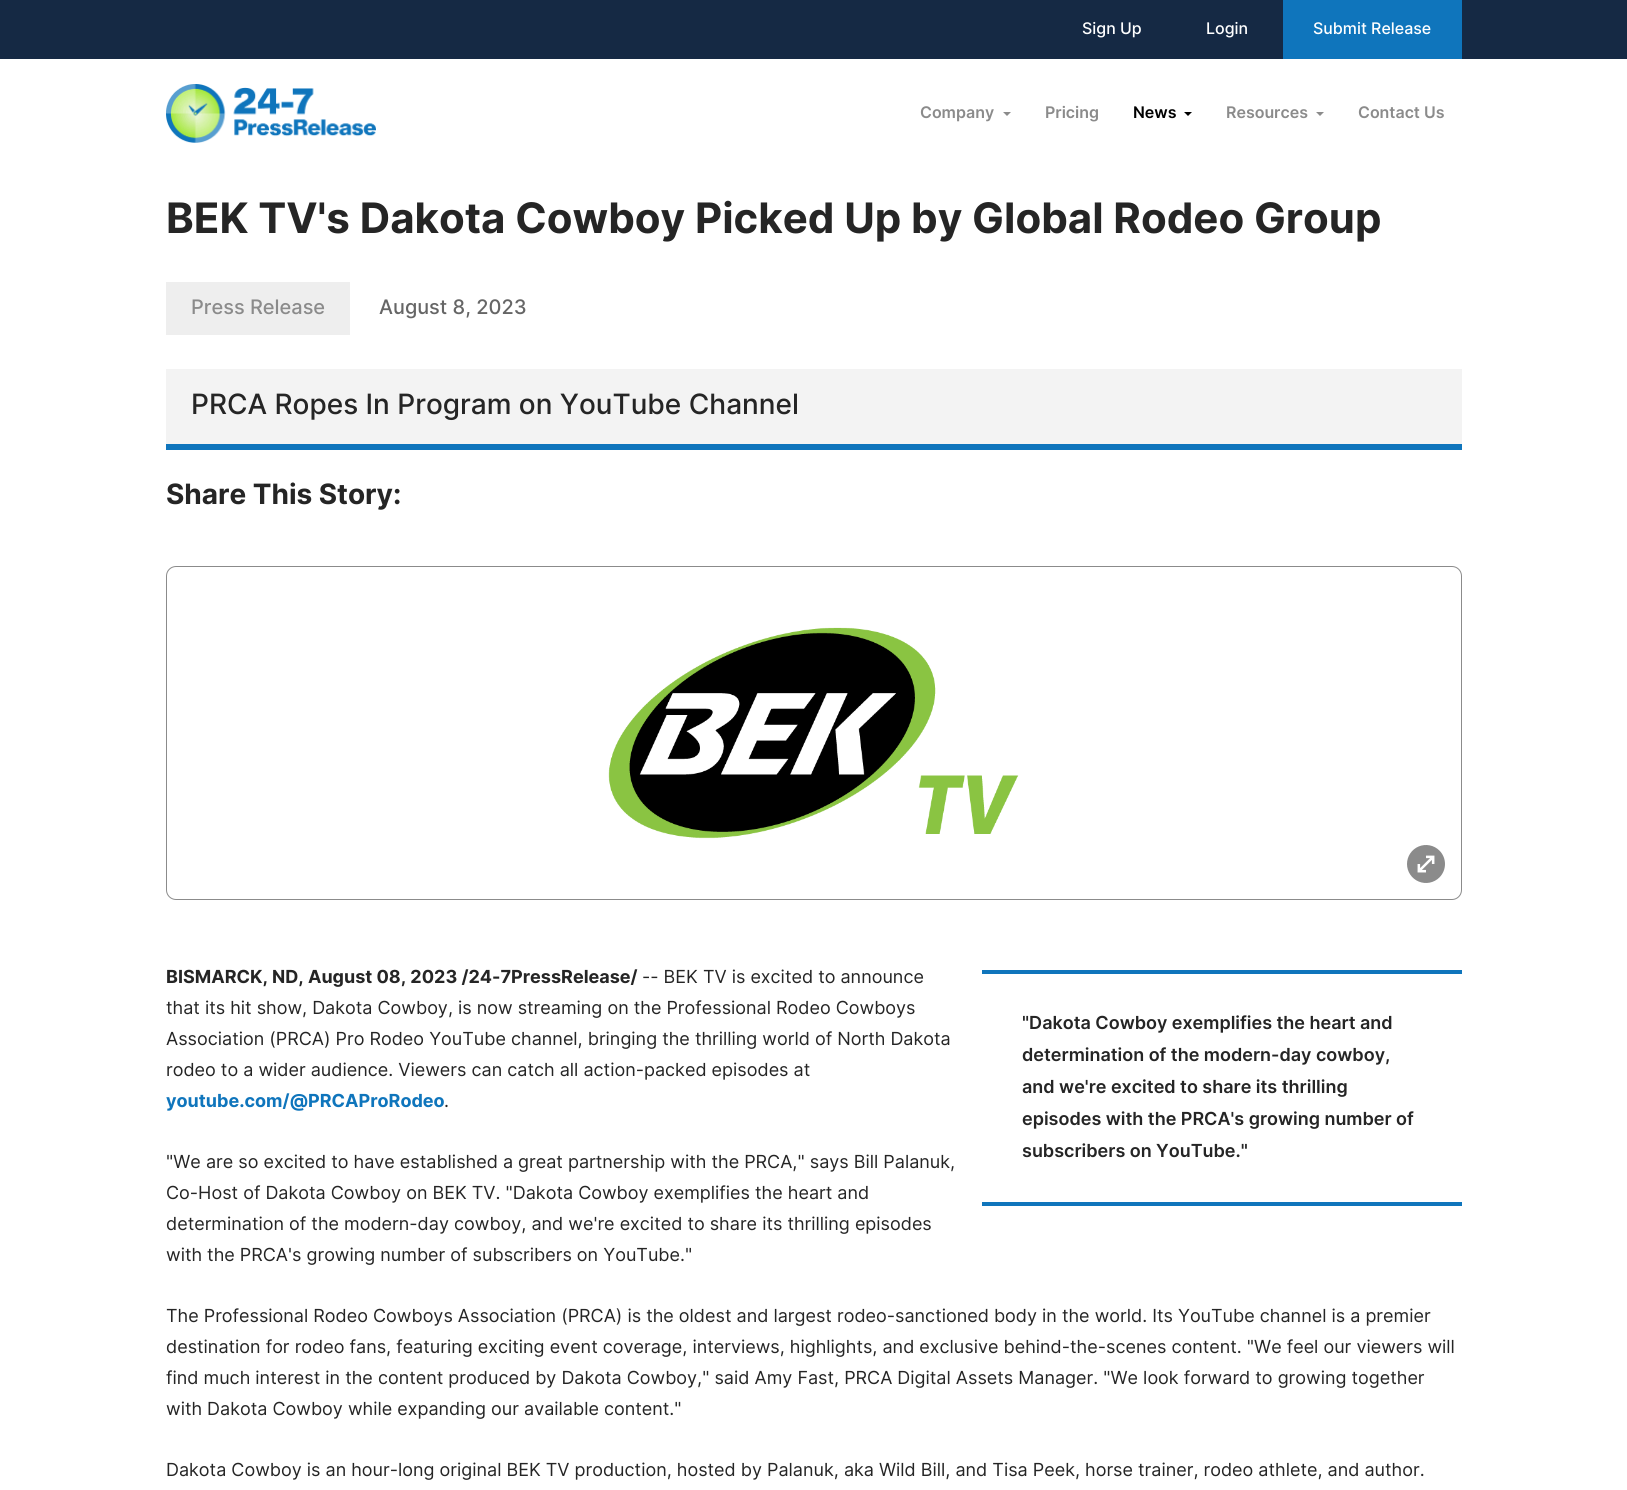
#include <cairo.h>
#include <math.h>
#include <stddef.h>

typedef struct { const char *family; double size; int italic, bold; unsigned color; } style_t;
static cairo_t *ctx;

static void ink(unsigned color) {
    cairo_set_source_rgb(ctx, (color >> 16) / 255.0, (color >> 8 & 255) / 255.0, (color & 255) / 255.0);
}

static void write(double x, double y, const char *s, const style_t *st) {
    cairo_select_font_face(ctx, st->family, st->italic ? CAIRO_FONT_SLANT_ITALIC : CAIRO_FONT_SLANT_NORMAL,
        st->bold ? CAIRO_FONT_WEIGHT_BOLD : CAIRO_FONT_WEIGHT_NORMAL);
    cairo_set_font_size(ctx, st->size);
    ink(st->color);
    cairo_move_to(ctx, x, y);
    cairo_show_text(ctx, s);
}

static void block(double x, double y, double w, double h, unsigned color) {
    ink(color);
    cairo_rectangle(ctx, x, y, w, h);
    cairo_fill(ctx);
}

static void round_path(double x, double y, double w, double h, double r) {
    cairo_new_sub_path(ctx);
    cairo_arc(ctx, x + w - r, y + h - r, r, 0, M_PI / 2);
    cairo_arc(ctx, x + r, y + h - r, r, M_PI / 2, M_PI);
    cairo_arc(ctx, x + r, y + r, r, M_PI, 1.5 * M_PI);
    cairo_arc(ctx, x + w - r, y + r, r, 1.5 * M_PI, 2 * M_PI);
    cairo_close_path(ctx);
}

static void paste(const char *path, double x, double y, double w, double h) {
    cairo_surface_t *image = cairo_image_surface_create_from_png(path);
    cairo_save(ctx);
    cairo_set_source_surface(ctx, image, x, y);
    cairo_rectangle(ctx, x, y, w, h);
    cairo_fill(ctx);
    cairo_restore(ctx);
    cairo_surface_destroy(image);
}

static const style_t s1 = {"Inter Medium", 16, 0, 0, 0xffffff};
static const style_t s2 = {"Inter SemiBold", 16, 0, 0, 0x8b8b8b};
static const style_t s3 = {"Inter SemiBold", 16, 0, 0, 0x000000};
static const style_t s4 = {"Inter", 42, 0, 1, 0x252525};
static const style_t s5 = {"Inter Medium", 20, 0, 0, 0x8b8b8b};
static const style_t s6 = {"Inter Medium", 20, 0, 0, 0x666666};
static const style_t s7 = {"Inter Medium", 28, 0, 0, 0x252525};
static const style_t s8 = {"Inter", 28, 0, 1, 0x252525};
static const style_t s9 = {"Inter", 18, 0, 1, 0x252525};
static const style_t s10 = {"Inter", 18, 0, 0, 0x252525};
static const style_t s11 = {"Inter", 18, 0, 1, 0x0f75bc};
static const style_t s12 = {"Inter SemiBold", 18, 0, 0, 0x252525};

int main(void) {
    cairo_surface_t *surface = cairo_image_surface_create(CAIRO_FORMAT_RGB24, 1627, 1490);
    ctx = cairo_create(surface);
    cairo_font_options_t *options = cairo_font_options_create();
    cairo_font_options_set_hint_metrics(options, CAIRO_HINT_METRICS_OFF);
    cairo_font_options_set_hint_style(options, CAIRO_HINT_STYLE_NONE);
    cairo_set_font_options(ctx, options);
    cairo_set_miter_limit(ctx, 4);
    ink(0xffffff);
    cairo_paint(ctx);
    block(0, 0, 1627, 59, 0x152944);
    write(1082, 34, "Sign Up", &s1);
    write(1206, 34, "Login", &s1);
    block(1283, 0, 179, 59, 0x0f75bc);
    write(1313, 34, "Submit Release", &s1);
    paste("pic1.png", 166, 84, 210, 59);
    write(920, 118, "Company", &s2);
    cairo_new_path(ctx);
    cairo_move_to(ctx, 1003, 112);
    cairo_line_to(ctx, 1011, 112);
    cairo_line_to(ctx, 1007, 116);
    cairo_close_path(ctx);
    cairo_fill(ctx);
    write(1045, 118, "Pricing", &s2);
    write(1133, 118, "News", &s3);
    cairo_new_path(ctx);
    cairo_move_to(ctx, 1184, 112);
    cairo_line_to(ctx, 1192, 112);
    cairo_line_to(ctx, 1188, 116);
    cairo_close_path(ctx);
    cairo_fill(ctx);
    write(1226, 118, "Resources", &s2);
    cairo_new_path(ctx);
    cairo_move_to(ctx, 1316, 112);
    cairo_line_to(ctx, 1324, 112);
    cairo_line_to(ctx, 1320, 116);
    cairo_close_path(ctx);
    cairo_fill(ctx);
    write(1358, 118, "Contact Us", &s2);
    write(166, 233, "BEK TV's Dakota Cowboy Picked Up by Global Rodeo Group", &s4);
    block(166, 282, 184, 53, 0xeeeeee);
    write(191, 314, "Press Release", &s5);
    write(379, 314, "August 8, 2023", &s6);
    block(166, 369, 1296, 75, 0xf3f3f3);
    block(166, 444, 1296, 6, 0x0f75bc);
    write(191, 414, "PRCA Ropes In Program on YouTube Channel", &s7);
    write(166, 504, "Share This Story:", &s8);
    round_path(166.5, 566.5, 1295, 333, 9.5);
    ink(0x8b8b8b);
    cairo_set_line_width(ctx, 1);
    cairo_stroke(ctx);
    paste("pic2.png", 608, 627, 411, 212);
    paste("pic3.png", 1407, 845, 38, 38);
    write(166, 983, "BISMARCK, ND, August 08, 2023 /24-7PressRelease/", &s9);
    write(642, 983, "-- BEK TV is excited to announce", &s10);
    write(166, 1014, "that its hit show, Dakota Cowboy, is now streaming on the Professional Rodeo Cowboys", &s10);
    write(166, 1045, "Association (PRCA) Pro Rodeo YouTube channel, bringing the thrilling world of North Dakota", &s10);
    write(166, 1076, "rodeo to a wider audience. Viewers can catch all action-packed episodes at", &s10);
    write(166, 1107, "youtube.com/@PRCAProRodeo", &s11);
    write(444, 1107, ".", &s10);
    write(166, 1168, "\"We are so excited to have established a great partnership with the PRCA,\" says Bill Palanuk,", &s10);
    write(166, 1199, "Co-Host of Dakota Cowboy on BEK TV. \"Dakota Cowboy exemplifies the heart and", &s10);
    write(166, 1230, "determination of the modern-day cowboy, and we're excited to share its thrilling episodes", &s10);
    write(166, 1261, "with the PRCA's growing number of subscribers on YouTube.\"", &s10);
    write(166, 1322, "The Professional Rodeo Cowboys Association (PRCA) is the oldest and largest rodeo-sanctioned body in the world. Its YouTube channel is a premier", &s10);
    write(166, 1353, "destination for rodeo fans, featuring exciting event coverage, interviews, highlights, and exclusive behind-the-scenes content. \"We feel our viewers will", &s10);
    write(166, 1384, "find much interest in the content produced by Dakota Cowboy,\" said Amy Fast, PRCA Digital Assets Manager. \"We look forward to growing together", &s10);
    write(166, 1415, "with Dakota Cowboy while expanding our available content.\"", &s10);
    write(166, 1476, "Dakota Cowboy is an hour-long original BEK TV production, hosted by Palanuk, aka Wild Bill, and Tisa Peek, horse trainer, rodeo athlete, and author.", &s10);
    block(982, 970, 480, 4, 0x0f75bc);
    block(982, 1202, 480, 4, 0x0f75bc);
    write(1022, 1029, "\"Dakota Cowboy exemplifies the heart and", &s12);
    write(1022, 1061, "determination of the modern-day cowboy,", &s12);
    write(1022, 1093, "and we're excited to share its thrilling", &s12);
    write(1022, 1125, "episodes with the PRCA's growing number of", &s12);
    write(1022, 1157, "subscribers on YouTube.\"", &s12);
    cairo_surface_write_to_png(surface, "screenshot.png");
    cairo_font_options_destroy(options);
    cairo_destroy(ctx);
    cairo_surface_destroy(surface);
    return 0;
}
